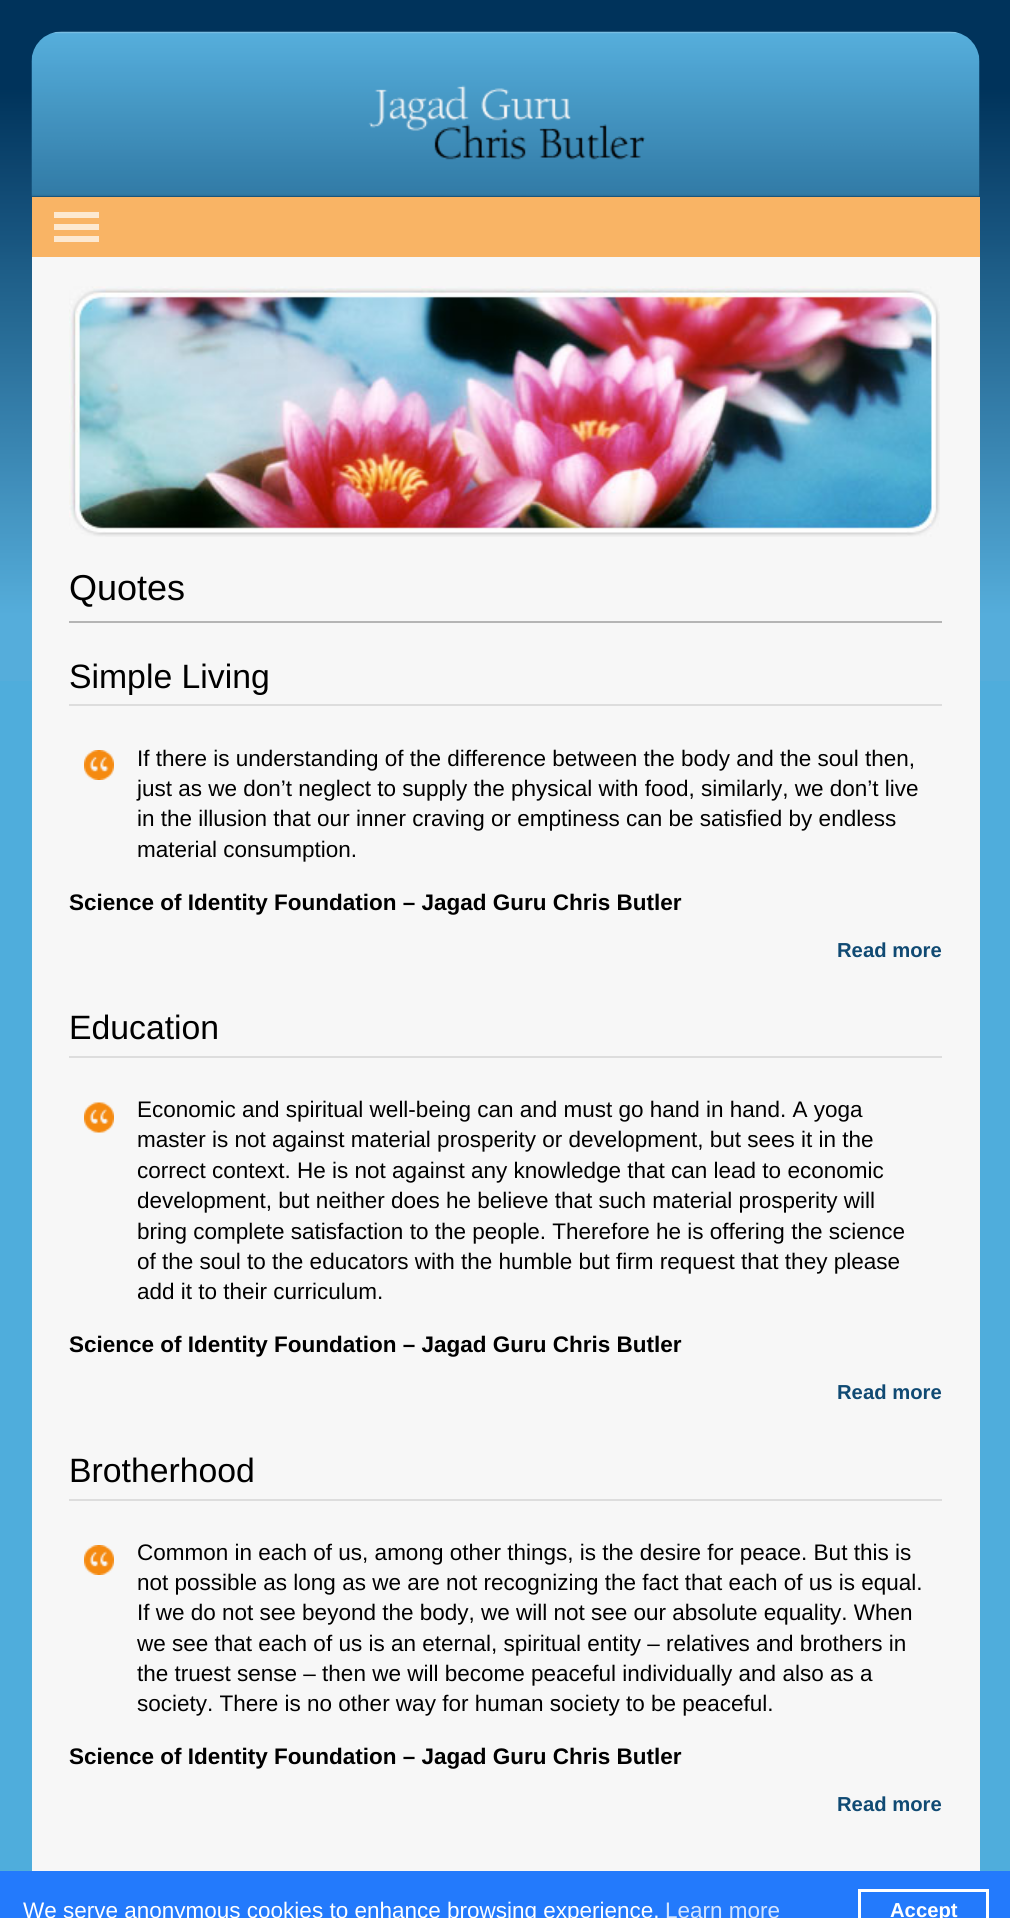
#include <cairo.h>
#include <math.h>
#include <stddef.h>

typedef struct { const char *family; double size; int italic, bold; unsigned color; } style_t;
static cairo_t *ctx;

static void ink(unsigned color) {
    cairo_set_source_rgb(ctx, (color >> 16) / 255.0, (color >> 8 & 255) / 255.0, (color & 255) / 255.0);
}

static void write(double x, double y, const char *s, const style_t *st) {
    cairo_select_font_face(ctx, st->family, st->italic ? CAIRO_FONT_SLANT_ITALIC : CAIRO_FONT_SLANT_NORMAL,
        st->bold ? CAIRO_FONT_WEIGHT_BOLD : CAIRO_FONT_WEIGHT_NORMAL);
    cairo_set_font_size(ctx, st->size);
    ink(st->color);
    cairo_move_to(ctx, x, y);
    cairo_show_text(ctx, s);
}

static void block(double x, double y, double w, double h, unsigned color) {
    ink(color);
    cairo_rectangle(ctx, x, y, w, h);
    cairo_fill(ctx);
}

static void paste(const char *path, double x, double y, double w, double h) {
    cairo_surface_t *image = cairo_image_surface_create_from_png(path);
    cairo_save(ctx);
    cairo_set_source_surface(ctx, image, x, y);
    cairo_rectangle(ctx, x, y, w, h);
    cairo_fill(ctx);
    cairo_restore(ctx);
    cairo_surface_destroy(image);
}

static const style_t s1 = {"Liberation Sans", 36, 0, 0, 0x000000};
static const style_t s2 = {"Liberation Sans", 33.75, 0, 0, 0x000000};
static const style_t s3 = {"Liberation Sans", 22.5, 0, 0, 0x000000};
static const style_t s4 = {"Liberation Sans", 22.5, 0, 1, 0x000000};
static const style_t s5 = {"Liberation Sans", 20.25, 0, 1, 0x104a73};
static const style_t s6 = {"Liberation Sans", 22.5, 0, 0, 0xffffff};
static const style_t s7 = {"Liberation Sans", 22.5, 0, 0, 0xd3e4fe};
static const style_t s8 = {"Liberation Sans", 20.25, 0, 1, 0xffffff};

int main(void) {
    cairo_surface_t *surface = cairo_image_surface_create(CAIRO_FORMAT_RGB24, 1010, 1918);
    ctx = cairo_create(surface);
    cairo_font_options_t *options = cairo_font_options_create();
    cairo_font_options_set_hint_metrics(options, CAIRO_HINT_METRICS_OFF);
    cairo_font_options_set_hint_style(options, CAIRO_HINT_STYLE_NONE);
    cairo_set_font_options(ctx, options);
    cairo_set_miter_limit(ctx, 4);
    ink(0x4faddc);
    cairo_paint(ctx);
    paste("pic1.png", 0, 0, 1010, 681);
    paste("pic2.png", 31, 31, 949, 166);
    paste("pic3.png", 368, 85, 278, 75);
    block(32, 197, 948, 60, 0xf9b465);
    block(54, 212, 45, 6, 0xfde9d1);
    block(54, 224, 45, 6, 0xfde9d1);
    block(54, 236, 45, 6, 0xfde9d1);
    block(32, 257, 948, 1614, 0xf7f7f7);
    paste("pic4.png", 69, 286, 871, 251);
    block(69, 621, 873, 2, 0xb5b5b5);
    write(69, 600, "Quotes", &s1);
    block(69, 704, 873, 2, 0xdddddd);
    write(69, 688, "Simple Living", &s2);
    paste("pic5.png", 84, 750, 30, 30);
    write(137, 766, "If there is understanding of the difference between the body and the soul then,", &s3);
    write(137, 796, "just as we don’t neglect to supply the physical with food, similarly, we don’t live", &s3);
    write(137, 826, "in the illusion that our inner craving or emptiness can be satisfied by endless", &s3);
    write(137, 857, "material consumption.", &s3);
    write(69, 910, "Science of Identity Foundation – Jagad Guru Chris Butler", &s4);
    write(837, 957, "Read more", &s5);
    block(69, 1056, 873, 2, 0xdddddd);
    write(69, 1039, "Education", &s2);
    paste("pic6.png", 84, 1102, 30, 31);
    write(137, 1117, "Economic and spiritual well-being can and must go hand in hand. A yoga", &s3);
    write(137, 1147, "master is not against material prosperity or development, but sees it in the", &s3);
    write(137, 1178, "correct context. He is not against any knowledge that can lead to economic", &s3);
    write(137, 1208, "development, but neither does he believe that such material prosperity will", &s3);
    write(137, 1239, "bring complete satisfaction to the people. Therefore he is offering the science", &s3);
    write(137, 1269, "of the soul to the educators with the humble but firm request that they please", &s3);
    write(137, 1299, "add it to their curriculum.", &s3);
    write(69, 1352, "Science of Identity Foundation – Jagad Guru Chris Butler", &s4);
    write(837, 1399, "Read more", &s5);
    block(69, 1499, 873, 2, 0xdddddd);
    write(69, 1482, "Brotherhood", &s2);
    paste("pic5.png", 84, 1545, 30, 30);
    write(137, 1560, "Common in each of us, among other things, is the desire for peace. But this is", &s3);
    write(137, 1590, "not possible as long as we are not recognizing the fact that each of us is equal.", &s3);
    write(137, 1620, "If we do not see beyond the body, we will not see our absolute equality. When", &s3);
    write(137, 1651, "we see that each of us is an eternal, spiritual entity – relatives and brothers in", &s3);
    write(137, 1681, "the truest sense – then we will become peaceful individually and also as a", &s3);
    write(137, 1711, "society. There is no other way for human society to be peaceful.", &s3);
    write(69, 1764, "Science of Identity Foundation – Jagad Guru Chris Butler", &s4);
    write(837, 1811, "Read more", &s5);
    block(0, 1871, 1010, 47, 0x237afc);
    write(23, 1918, "We serve anonymous cookies to enhance browsing experience.", &s6);
    write(665, 1918, "Learn more", &s7);
    cairo_rectangle(ctx, 859.5, 1890.5, 128, 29);
    ink(0xffffff);
    cairo_set_line_width(ctx, 3);
    cairo_stroke(ctx);
    write(890, 1917, "Accept", &s8);
    cairo_surface_write_to_png(surface, "screenshot.png");
    cairo_font_options_destroy(options);
    cairo_destroy(ctx);
    cairo_surface_destroy(surface);
    return 0;
}
